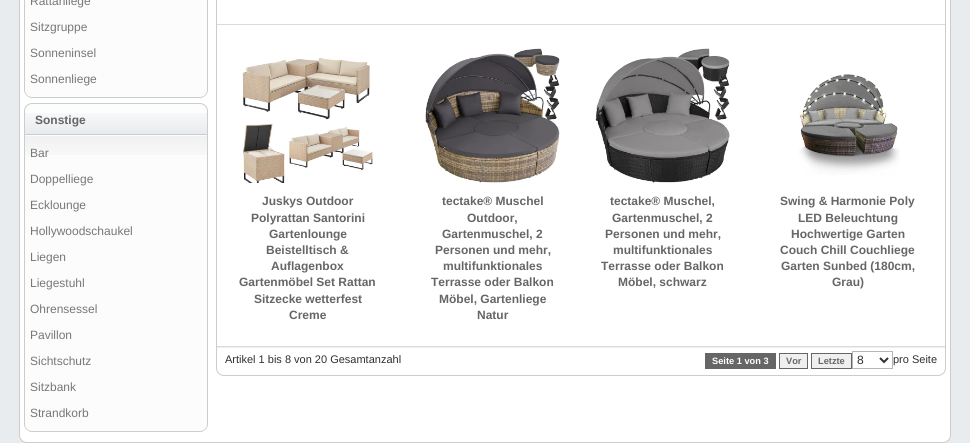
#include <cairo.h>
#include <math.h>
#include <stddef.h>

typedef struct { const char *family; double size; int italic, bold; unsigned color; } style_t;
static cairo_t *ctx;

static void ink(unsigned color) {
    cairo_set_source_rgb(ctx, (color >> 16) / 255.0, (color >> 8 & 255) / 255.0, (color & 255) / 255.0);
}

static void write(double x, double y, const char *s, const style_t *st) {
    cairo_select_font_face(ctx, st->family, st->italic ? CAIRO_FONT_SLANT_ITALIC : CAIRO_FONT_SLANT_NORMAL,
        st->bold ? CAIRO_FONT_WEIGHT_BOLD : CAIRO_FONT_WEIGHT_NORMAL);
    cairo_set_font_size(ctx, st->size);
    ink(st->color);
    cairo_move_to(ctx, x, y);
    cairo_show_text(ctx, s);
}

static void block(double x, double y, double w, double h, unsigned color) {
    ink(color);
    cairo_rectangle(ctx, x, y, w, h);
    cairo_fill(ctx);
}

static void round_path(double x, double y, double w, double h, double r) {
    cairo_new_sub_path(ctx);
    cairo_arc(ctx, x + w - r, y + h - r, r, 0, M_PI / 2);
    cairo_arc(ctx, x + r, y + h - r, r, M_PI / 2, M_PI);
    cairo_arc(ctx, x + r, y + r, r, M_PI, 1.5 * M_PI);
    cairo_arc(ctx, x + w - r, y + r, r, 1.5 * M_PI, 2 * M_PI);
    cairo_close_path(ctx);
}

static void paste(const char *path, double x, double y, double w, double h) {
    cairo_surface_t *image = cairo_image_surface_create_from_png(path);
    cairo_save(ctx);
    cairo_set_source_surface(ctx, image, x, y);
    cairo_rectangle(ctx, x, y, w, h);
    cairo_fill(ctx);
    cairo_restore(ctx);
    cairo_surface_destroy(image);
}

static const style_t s1 = {"Liberation Sans", 12, 0, 0, 0x777777};
static const style_t s2 = {"Liberation Sans", 12, 0, 1, 0x666666};
static const style_t s3 = {"Liberation Sans", 11, 0, 0, 0x2f2f2f};
static const style_t s4 = {"Liberation Sans", 9.25, 0, 1, 0xffffff};
static const style_t s5 = {"Liberation Sans", 9.25, 0, 1, 0x666666};
static const style_t s6 = {"Liberation Sans", 12, 0, 0, 0x2f2f2f};

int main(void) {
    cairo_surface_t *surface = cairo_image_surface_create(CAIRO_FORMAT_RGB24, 970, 443);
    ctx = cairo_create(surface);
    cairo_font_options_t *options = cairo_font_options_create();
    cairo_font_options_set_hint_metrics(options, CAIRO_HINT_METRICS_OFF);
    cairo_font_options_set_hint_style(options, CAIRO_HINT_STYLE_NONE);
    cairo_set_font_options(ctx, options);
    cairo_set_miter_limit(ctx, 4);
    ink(0xe9ecee);
    cairo_paint(ctx);
    ink(0xffffff);
    round_path(19.5, -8.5, 931, 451, 7.5);
    cairo_fill_preserve(ctx);
    ink(0xcccccc);
    cairo_set_line_width(ctx, 1);
    cairo_stroke(ctx);
    ink(0xfcfcfc);
    cairo_new_path(ctx);
    cairo_move_to(ctx, 24, -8);
    cairo_line_to(ctx, 208, -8);
    cairo_line_to(ctx, 208, 90);
    cairo_curve_to(ctx, 208, 94.5, 204.5, 98, 200, 98);
    cairo_line_to(ctx, 32, 98);
    cairo_curve_to(ctx, 27.5, 98, 24, 94.5, 24, 90);
    cairo_close_path(ctx);
    cairo_fill(ctx);
    ink(0xcccccc);
    cairo_set_fill_rule(ctx, CAIRO_FILL_RULE_EVEN_ODD);
    cairo_new_path(ctx);
    cairo_move_to(ctx, 24, -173);
    cairo_line_to(ctx, 208, -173);
    cairo_line_to(ctx, 208, 90);
    cairo_curve_to(ctx, 208, 94, 204, 98, 200, 98);
    cairo_line_to(ctx, 32, 98);
    cairo_curve_to(ctx, 28, 98, 24, 94, 24, 90);
    cairo_close_path(ctx);
    cairo_move_to(ctx, 25, -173);
    cairo_line_to(ctx, 207, -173);
    cairo_line_to(ctx, 207, 90);
    cairo_curve_to(ctx, 207, 94, 204, 97, 200, 97);
    cairo_line_to(ctx, 32, 97);
    cairo_curve_to(ctx, 28, 97, 25, 94, 25, 90);
    cairo_close_path(ctx);
    cairo_fill(ctx);
    write(30, 5, "Rattanliege", &s1);
    write(30, 31, "Sitzgruppe", &s1);
    write(30, 57, "Sonneninsel", &s1);
    write(30, 83, "Sonnenliege", &s1);
    ink(0xfcfdfd);
    cairo_new_path(ctx);
    cairo_move_to(ctx, 32, 103);
    cairo_line_to(ctx, 200, 103);
    cairo_curve_to(ctx, 204.5, 103, 208, 106.5, 208, 111);
    cairo_line_to(ctx, 208, 135);
    cairo_line_to(ctx, 24, 135);
    cairo_line_to(ctx, 24, 111);
    cairo_curve_to(ctx, 24, 106.5, 27.5, 103, 32, 103);
    cairo_close_path(ctx);
    cairo_fill(ctx);
    paste("pic1.png", 25, 113, 182, 21);
    cairo_new_path(ctx);
    cairo_move_to(ctx, 32, 103.5);
    cairo_line_to(ctx, 200, 103.5);
    cairo_curve_to(ctx, 204, 103.5, 207.5, 107, 207.5, 111);
    cairo_line_to(ctx, 207.5, 134.5);
    cairo_line_to(ctx, 24.5, 134.5);
    cairo_line_to(ctx, 24.5, 111);
    cairo_curve_to(ctx, 24.5, 107, 28, 103.5, 32, 103.5);
    cairo_close_path(ctx);
    ink(0xcccccc);
    cairo_stroke(ctx);
    write(35, 124, "Sonstige", &s2);
    ink(0xfcfcfc);
    cairo_new_path(ctx);
    cairo_move_to(ctx, 24, 135);
    cairo_line_to(ctx, 208, 135);
    cairo_line_to(ctx, 208, 424);
    cairo_curve_to(ctx, 208, 428.5, 204.5, 432, 200, 432);
    cairo_line_to(ctx, 32, 432);
    cairo_curve_to(ctx, 27.5, 432, 24, 428.5, 24, 424);
    cairo_close_path(ctx);
    cairo_fill(ctx);
    paste("pic2.png", 25, 136, 182, 19);
    ink(0xcccccc);
    cairo_new_path(ctx);
    cairo_move_to(ctx, 24, 135);
    cairo_line_to(ctx, 208, 135);
    cairo_line_to(ctx, 208, 424);
    cairo_curve_to(ctx, 208, 428, 204, 432, 200, 432);
    cairo_line_to(ctx, 32, 432);
    cairo_curve_to(ctx, 28, 432, 24, 428, 24, 424);
    cairo_close_path(ctx);
    cairo_move_to(ctx, 25, 135);
    cairo_line_to(ctx, 207, 135);
    cairo_line_to(ctx, 207, 424);
    cairo_curve_to(ctx, 207, 428, 204, 431, 200, 431);
    cairo_line_to(ctx, 32, 431);
    cairo_curve_to(ctx, 28, 431, 25, 428, 25, 424);
    cairo_close_path(ctx);
    cairo_fill(ctx);
    write(30, 157, "Bar", &s1);
    write(30, 183, "Doppelliege", &s1);
    write(30, 209, "Ecklounge", &s1);
    write(30, 235, "Hollywoodschaukel", &s1);
    write(30, 261, "Liegen", &s1);
    write(30, 287, "Liegestuhl", &s1);
    write(30, 313, "Ohrensessel", &s1);
    write(30, 339, "Pavillon", &s1);
    write(30, 365, "Sichtschutz", &s1);
    write(30, 391, "Sitzbank", &s1);
    write(30, 417, "Strandkorb", &s1);
    round_path(216.5, -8.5, 729, 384, 7.5);
    ink(0xcccccc);
    cairo_stroke(ctx);
    block(217, 24, 728, 1, 0xd9dde3);
    block(217, 346, 728, 1, 0xd9dde3);
    paste("pic3.png", 242, 57, 131, 126);
    write(262, 205, "Juskys Outdoor", &s2);
    write(251, 222, "Polyrattan Santorini", &s2);
    write(269, 238, "Gartenlounge", &s2);
    write(266, 254, "Beistelltisch &", &s2);
    write(271, 270, "Auflagenbox", &s2);
    write(239, 286, "Gartenmöbel Set Rattan", &s2);
    write(254, 303, "Sitzecke wetterfest", &s2);
    write(289, 319, "Creme", &s2);
    paste("pic4.png", 425, 48, 135, 135);
    write(442, 205, "tectake® Muschel", &s2);
    write(467, 222, "Outdoor,", &s2);
    write(442, 238, "Gartenmuschel, 2", &s2);
    write(435, 254, "Personen und mehr,", &s2);
    write(443, 270, "multifunktionales", &s2);
    write(431, 286, "Terrasse oder Balkon", &s2);
    write(439, 303, "Möbel, Gartenliege", &s2);
    write(477, 319, "Natur", &s2);
    paste("pic5.png", 595, 48, 135, 135);
    write(610, 205, "tectake® Muschel,", &s2);
    write(612, 222, "Gartenmuschel, 2", &s2);
    write(605, 238, "Personen und mehr,", &s2);
    write(613, 254, "multifunktionales", &s2);
    write(601, 270, "Terrasse oder Balkon", &s2);
    write(618, 286, "Möbel, schwarz", &s2);
    paste("pic6.png", 798, 74, 102, 101);
    write(780, 205, "Swing & Harmonie Poly", &s2);
    write(798, 222, "LED Beleuchtung", &s2);
    write(791, 238, "Hochwertige Garten", &s2);
    write(780, 254, "Couch Chill Couchliege", &s2);
    write(781, 270, "Garten Sunbed (180cm,", &s2);
    write(832, 286, "Grau)", &s2);
    block(217, 347, 728, 1, 0xeeeeee);
    write(225, 363, "Artikel 1 bis 8 von 20 Gesamtanzahl", &s3);
    block(705, 353, 71, 16, 0x666666);
    write(712, 364, "Seite 1 von 3", &s4);
    ink(0xefefef);
    cairo_rectangle(ctx, 779.5, 353.5, 28, 15);
    cairo_fill_preserve(ctx);
    ink(0x666666);
    cairo_stroke(ctx);
    write(786, 364, "Vor", &s5);
    ink(0xefefef);
    cairo_rectangle(ctx, 811.5, 353.5, 40, 15);
    cairo_fill_preserve(ctx);
    ink(0x666666);
    cairo_stroke(ctx);
    write(818, 364, "Letzte", &s5);
    cairo_rectangle(ctx, 852.5, 351.5, 40, 17);
    ink(0xb6b6b6);
    cairo_stroke(ctx);
    cairo_new_path(ctx);
    cairo_move_to(ctx, 880, 358);
    cairo_line_to(ctx, 884, 362);
    cairo_line_to(ctx, 888, 358);
    ink(0x2f2f2f);
    cairo_set_line_width(ctx, 2);
    cairo_stroke(ctx);
    write(857, 364, "8", &s6);
    write(893, 363, "pro Seite", &s3);
    cairo_surface_write_to_png(surface, "screenshot.png");
    cairo_font_options_destroy(options);
    cairo_destroy(ctx);
    cairo_surface_destroy(surface);
    return 0;
}
